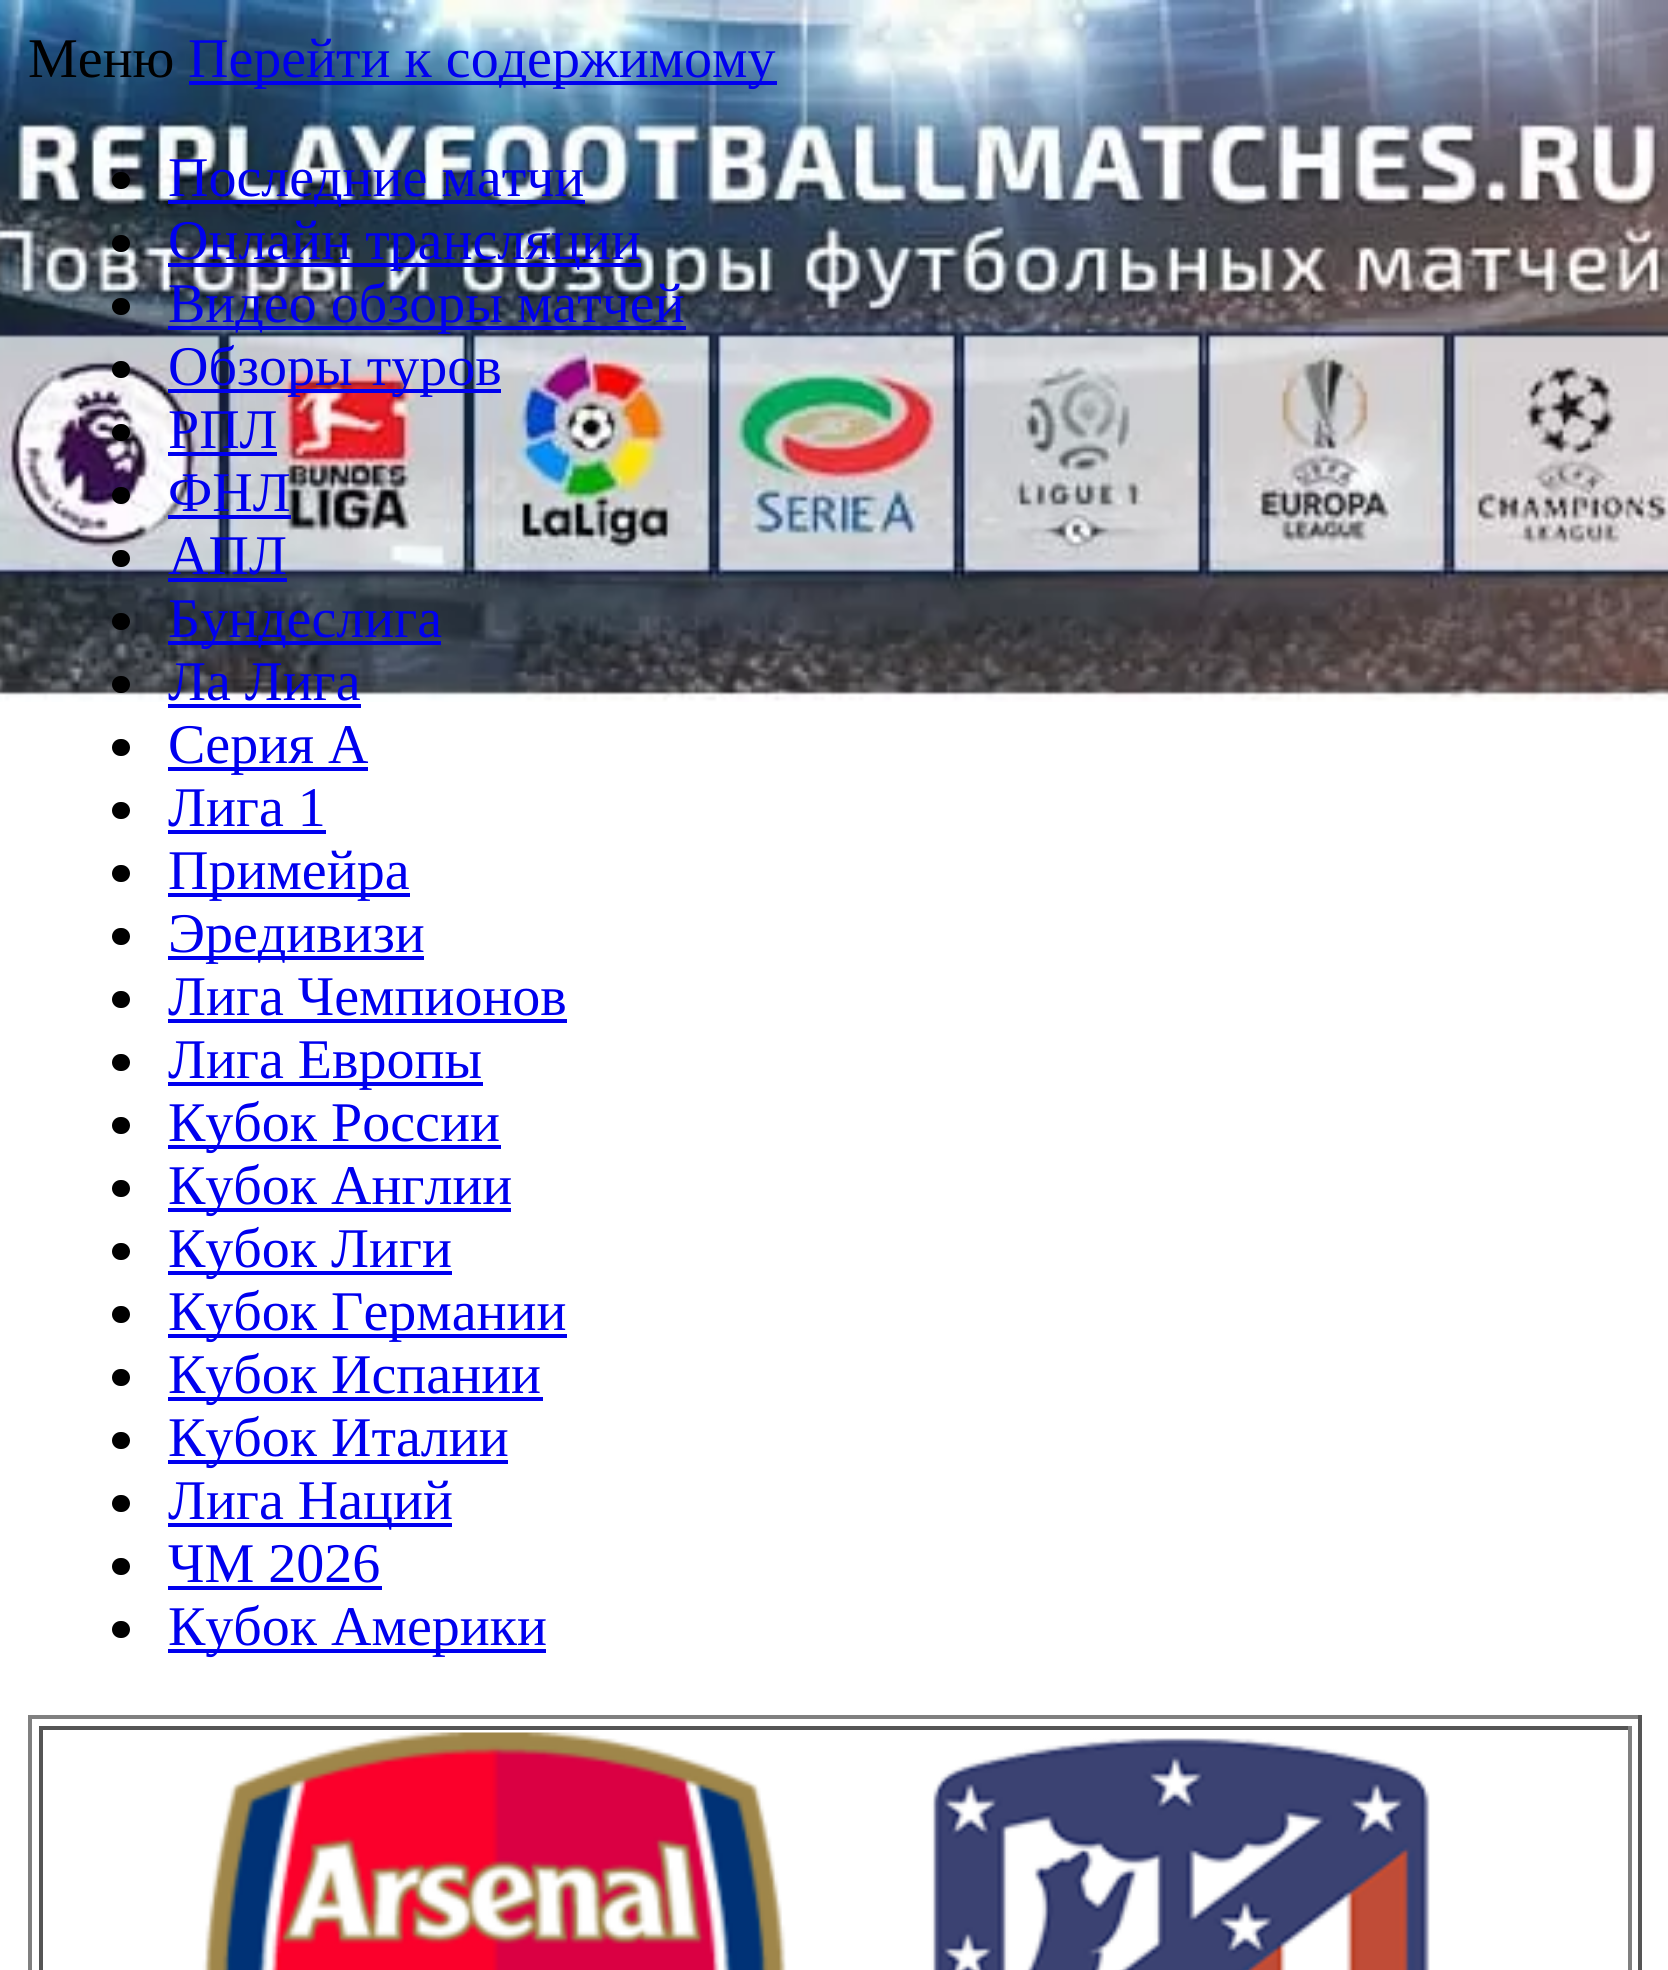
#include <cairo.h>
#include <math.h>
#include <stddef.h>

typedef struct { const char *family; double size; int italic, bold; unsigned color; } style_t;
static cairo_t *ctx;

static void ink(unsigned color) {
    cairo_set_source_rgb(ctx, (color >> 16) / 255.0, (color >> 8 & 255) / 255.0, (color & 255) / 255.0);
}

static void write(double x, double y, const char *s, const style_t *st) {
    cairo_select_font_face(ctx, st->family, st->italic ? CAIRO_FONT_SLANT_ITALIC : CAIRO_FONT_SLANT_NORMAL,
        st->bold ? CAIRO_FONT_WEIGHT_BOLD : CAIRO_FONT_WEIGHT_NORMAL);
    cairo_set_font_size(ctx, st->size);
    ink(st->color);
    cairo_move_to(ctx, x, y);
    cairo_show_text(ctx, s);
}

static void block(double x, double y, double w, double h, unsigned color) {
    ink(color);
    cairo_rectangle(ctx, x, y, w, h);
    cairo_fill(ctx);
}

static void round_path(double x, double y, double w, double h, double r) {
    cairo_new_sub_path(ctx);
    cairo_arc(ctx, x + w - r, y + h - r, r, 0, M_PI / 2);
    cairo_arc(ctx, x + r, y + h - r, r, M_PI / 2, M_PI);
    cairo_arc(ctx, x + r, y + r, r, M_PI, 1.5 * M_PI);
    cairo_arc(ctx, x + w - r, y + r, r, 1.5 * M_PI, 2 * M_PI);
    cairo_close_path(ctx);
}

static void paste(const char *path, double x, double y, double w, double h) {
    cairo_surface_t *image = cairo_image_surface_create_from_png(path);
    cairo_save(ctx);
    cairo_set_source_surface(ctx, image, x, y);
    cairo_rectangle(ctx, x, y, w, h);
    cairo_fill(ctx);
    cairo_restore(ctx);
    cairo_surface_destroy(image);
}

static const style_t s1 = {"Liberation Serif", 56, 0, 0, 0x000000};
static const style_t s2 = {"Liberation Serif", 56, 0, 0, 0x0000ee};

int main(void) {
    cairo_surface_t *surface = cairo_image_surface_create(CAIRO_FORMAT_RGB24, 1668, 1970);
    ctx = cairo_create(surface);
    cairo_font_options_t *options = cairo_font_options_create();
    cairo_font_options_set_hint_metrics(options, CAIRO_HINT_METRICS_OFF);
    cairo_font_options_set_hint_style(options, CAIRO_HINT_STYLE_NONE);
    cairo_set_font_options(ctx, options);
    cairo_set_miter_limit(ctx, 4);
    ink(0xffffff);
    cairo_paint(ctx);
    paste("pic1.png", 0, 0, 1668, 702);
    write(28, 77, "Меню", &s1);
    block(189, 81, 588, 4, 0x0000ee);
    write(188, 77, "Перейти к содержимому", &s2);
    ink(0x000000);
    round_path(112, 172, 18, 17, 8.5);
    cairo_fill(ctx);
    block(168, 200, 417, 4, 0x0000ee);
    write(168, 196, "Последние матчи", &s2);
    ink(0x000000);
    round_path(112, 235, 18, 17, 8.5);
    cairo_fill(ctx);
    block(168, 263, 473, 4, 0x0000ee);
    write(168, 259, "Онлайн трансляции", &s2);
    ink(0x000000);
    round_path(112, 298, 18, 17, 8.5);
    cairo_fill(ctx);
    block(168, 326, 518, 4, 0x0000ee);
    write(168, 322, "Видео обзоры матчей", &s2);
    ink(0x000000);
    round_path(112, 361, 18, 17, 8.5);
    cairo_fill(ctx);
    block(168, 389, 333, 4, 0x0000ee);
    write(168, 385, "Обзоры туров", &s2);
    ink(0x000000);
    round_path(112, 424, 18, 17, 8.5);
    cairo_fill(ctx);
    write(168, 448, "РПЛ", &s2);
    block(168, 452, 109, 4, 0x0000ee);
    ink(0x000000);
    round_path(112, 487, 18, 17, 8.5);
    cairo_fill(ctx);
    write(168, 511, "ФНЛ", &s2);
    block(168, 515, 123, 4, 0x0000ee);
    ink(0x000000);
    round_path(112, 550, 18, 17, 8.5);
    cairo_fill(ctx);
    write(168, 574, "АПЛ", &s2);
    block(168, 578, 119, 4, 0x0000ee);
    ink(0x000000);
    round_path(112, 613, 18, 17, 8.5);
    cairo_fill(ctx);
    block(168, 641, 273, 4, 0x0000ee);
    write(168, 637, "Бундеслига", &s2);
    ink(0x000000);
    round_path(112, 676, 18, 17, 8.5);
    cairo_fill(ctx);
    write(168, 700, "Ла Лига", &s2);
    block(168, 704, 193, 4, 0x0000ee);
    ink(0x000000);
    round_path(112, 739, 18, 17, 8.5);
    cairo_fill(ctx);
    block(168, 767, 200, 4, 0x0000ee);
    write(168, 763, "Серия А", &s2);
    ink(0x000000);
    round_path(112, 802, 18, 17, 8.5);
    cairo_fill(ctx);
    write(168, 826, "Лига 1", &s2);
    block(168, 830, 158, 4, 0x0000ee);
    ink(0x000000);
    round_path(112, 865, 18, 17, 8.5);
    cairo_fill(ctx);
    block(168, 893, 242, 4, 0x0000ee);
    write(168, 889, "Примейра", &s2);
    ink(0x000000);
    round_path(112, 928, 18, 17, 8.5);
    cairo_fill(ctx);
    block(168, 956, 256, 4, 0x0000ee);
    write(168, 952, "Эредивизи", &s2);
    ink(0x000000);
    round_path(112, 991, 18, 17, 8.5);
    cairo_fill(ctx);
    write(168, 1015, "Лига Чемпионов", &s2);
    block(168, 1019, 399, 4, 0x0000ee);
    ink(0x000000);
    round_path(112, 1054, 18, 17, 8.5);
    cairo_fill(ctx);
    block(168, 1082, 315, 4, 0x0000ee);
    write(168, 1078, "Лига Европы", &s2);
    ink(0x000000);
    round_path(112, 1117, 18, 17, 8.5);
    cairo_fill(ctx);
    block(168, 1145, 333, 4, 0x0000ee);
    write(168, 1141, "Кубок России", &s2);
    ink(0x000000);
    round_path(112, 1180, 18, 17, 8.5);
    cairo_fill(ctx);
    block(168, 1208, 343, 4, 0x0000ee);
    write(168, 1204, "Кубок Англии", &s2);
    ink(0x000000);
    round_path(112, 1243, 18, 17, 8.5);
    cairo_fill(ctx);
    block(168, 1271, 284, 4, 0x0000ee);
    write(168, 1267, "Кубок Лиги", &s2);
    ink(0x000000);
    round_path(112, 1306, 18, 17, 8.5);
    cairo_fill(ctx);
    block(168, 1334, 399, 4, 0x0000ee);
    write(168, 1330, "Кубок Германии", &s2);
    ink(0x000000);
    round_path(112, 1369, 18, 17, 8.5);
    cairo_fill(ctx);
    block(168, 1397, 375, 4, 0x0000ee);
    write(168, 1393, "Кубок Испании", &s2);
    ink(0x000000);
    round_path(112, 1432, 18, 17, 8.5);
    cairo_fill(ctx);
    block(168, 1460, 340, 4, 0x0000ee);
    write(168, 1456, "Кубок Италии", &s2);
    ink(0x000000);
    round_path(112, 1495, 18, 17, 8.5);
    cairo_fill(ctx);
    block(168, 1523, 284, 4, 0x0000ee);
    write(168, 1519, "Лига Наций", &s2);
    ink(0x000000);
    round_path(112, 1558, 18, 17, 8.5);
    cairo_fill(ctx);
    write(168, 1582, "ЧМ 2026", &s2);
    block(168, 1586, 214, 4, 0x0000ee);
    ink(0x000000);
    round_path(112, 1621, 18, 17, 8.5);
    cairo_fill(ctx);
    block(168, 1649, 378, 4, 0x0000ee);
    write(168, 1645, "Кубок Америки", &s2);
    block(28, 1715, 1614, 4, 0x808080);
    block(1638, 1715, 4, 255, 0x555555);
    block(28, 1715, 4, 255, 0x808080);
    block(39, 1726, 1592, 4, 0x555555);
    block(1628, 1726, 4, 244, 0x808080);
    block(39, 1726, 4, 244, 0x555555);
    paste("pic2.png", 202, 1732, 585, 238);
    paste("pic3.png", 931, 1737, 499, 233);
    cairo_surface_write_to_png(surface, "screenshot.png");
    cairo_font_options_destroy(options);
    cairo_destroy(ctx);
    cairo_surface_destroy(surface);
    return 0;
}
